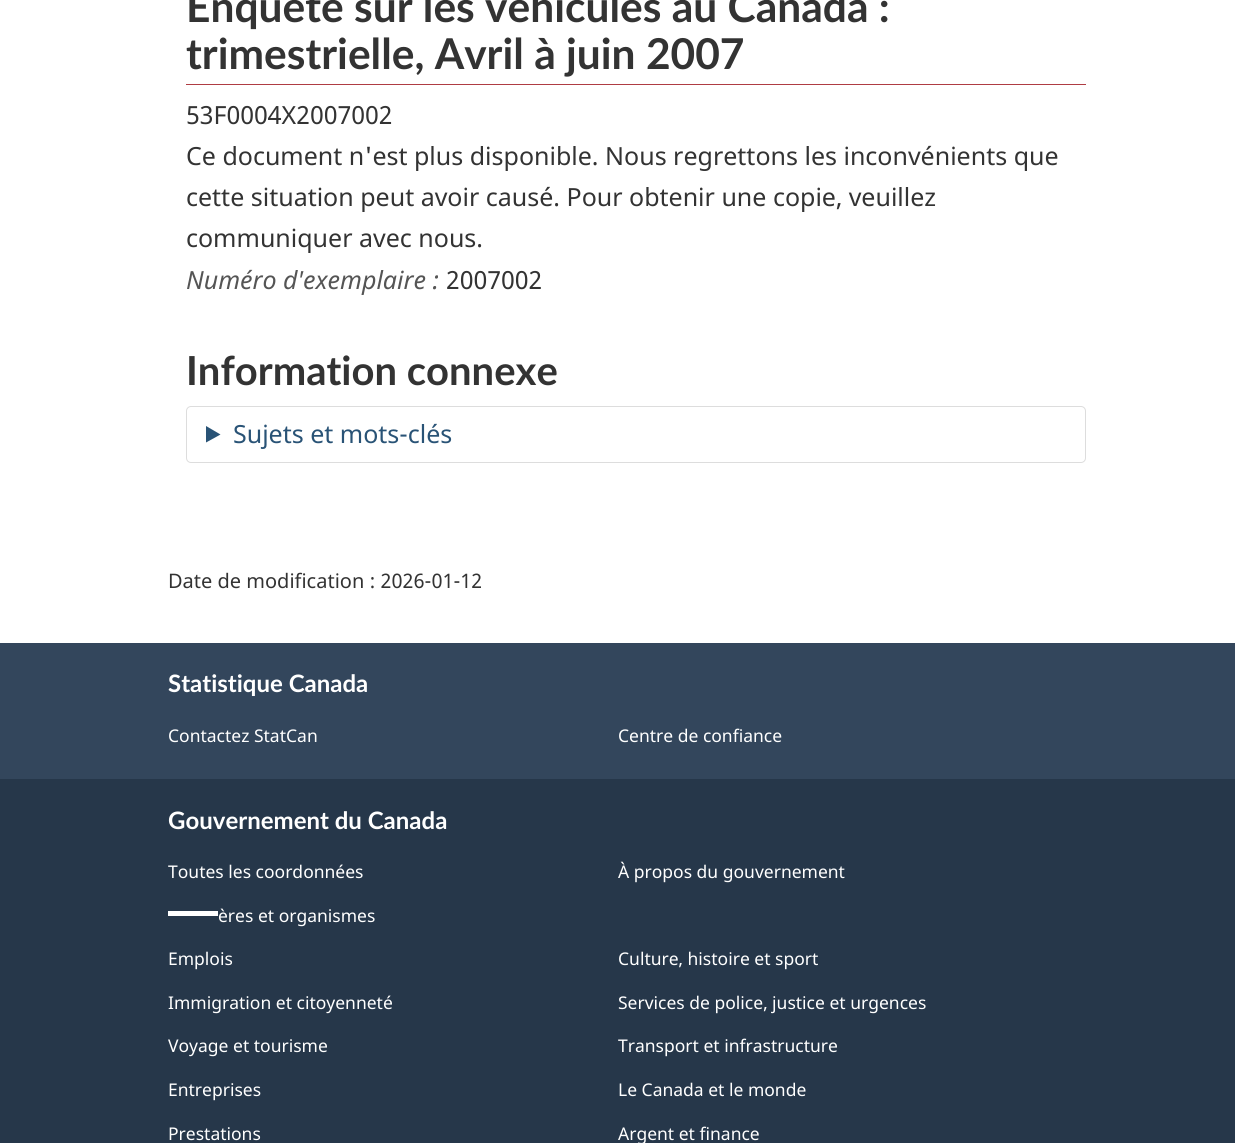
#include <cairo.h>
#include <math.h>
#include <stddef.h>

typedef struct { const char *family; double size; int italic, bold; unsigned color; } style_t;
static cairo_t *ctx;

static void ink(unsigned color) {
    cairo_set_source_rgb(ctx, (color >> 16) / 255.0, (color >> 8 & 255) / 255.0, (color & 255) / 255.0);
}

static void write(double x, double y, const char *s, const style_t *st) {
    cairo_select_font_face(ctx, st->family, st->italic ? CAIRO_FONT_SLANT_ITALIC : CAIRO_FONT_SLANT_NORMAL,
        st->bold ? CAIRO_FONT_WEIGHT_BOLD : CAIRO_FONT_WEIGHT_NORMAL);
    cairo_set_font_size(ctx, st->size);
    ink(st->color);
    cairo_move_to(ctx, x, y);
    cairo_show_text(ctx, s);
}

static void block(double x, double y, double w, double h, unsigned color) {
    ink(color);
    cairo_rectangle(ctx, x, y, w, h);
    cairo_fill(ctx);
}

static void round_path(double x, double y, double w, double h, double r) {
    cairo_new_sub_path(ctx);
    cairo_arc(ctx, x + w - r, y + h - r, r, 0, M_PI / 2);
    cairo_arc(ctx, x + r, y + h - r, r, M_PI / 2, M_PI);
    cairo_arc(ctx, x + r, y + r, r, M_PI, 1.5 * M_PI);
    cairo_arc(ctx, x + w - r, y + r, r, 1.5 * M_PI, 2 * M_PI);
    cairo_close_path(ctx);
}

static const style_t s1 = {"Lato", 42.5, 0, 1, 0x333333};
static const style_t s2 = {"Noto Sans", 25, 0, 0, 0x333333};
static const style_t s3 = {"Noto Sans", 25, 1, 0, 0x555555};
static const style_t s4 = {"Lato", 40, 0, 1, 0x333333};
static const style_t s5 = {"Noto Sans", 25, 0, 0, 0x295376};
static const style_t s6 = {"Noto Sans", 20, 0, 0, 0x333333};
static const style_t s7 = {"Lato", 24, 0, 1, 0xffffff};
static const style_t s8 = {"Noto Sans", 17.5, 0, 0, 0xffffff};

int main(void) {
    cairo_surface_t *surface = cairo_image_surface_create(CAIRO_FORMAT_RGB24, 1235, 1143);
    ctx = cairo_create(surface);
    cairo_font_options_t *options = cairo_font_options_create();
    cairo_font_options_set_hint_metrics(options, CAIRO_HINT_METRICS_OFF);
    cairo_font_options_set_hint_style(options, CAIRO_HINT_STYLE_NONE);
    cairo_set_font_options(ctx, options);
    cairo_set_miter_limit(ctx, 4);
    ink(0xffffff);
    cairo_paint(ctx);
    block(186, 84, 900, 1, 0xaf3c43);
    write(186, 22, "Enquête sur les véhicules au Canada :", &s1);
    write(186, 69, "trimestrielle, Avril à juin 2007", &s1);
    write(186, 124, "53F0004X2007002", &s2);
    write(186, 165, "Ce document n'est plus disponible. Nous regrettons les inconvénients que", &s2);
    write(186, 206, "cette situation peut avoir causé. Pour obtenir une copie, veuillez", &s2);
    write(186, 247, "communiquer avec nous.", &s2);
    write(186, 289, "Numéro d'exemplaire :", &s3);
    write(446, 289, "2007002", &s2);
    write(186, 385, "Information connexe", &s4);
    round_path(186.5, 406.5, 899, 56, 4.5);
    ink(0xdddddd);
    cairo_set_line_width(ctx, 1);
    cairo_stroke(ctx);
    ink(0x295376);
    cairo_new_path(ctx);
    cairo_move_to(ctx, 206, 426);
    cairo_line_to(ctx, 220.5, 434.5);
    cairo_line_to(ctx, 206, 442.5);
    cairo_close_path(ctx);
    cairo_fill(ctx);
    write(233, 443, "Sujets et mots-clés", &s5);
    write(168, 588, "Date de modification : 2026-01-12", &s6);
    block(0, 643, 1235, 136, 0x33465c);
    write(168, 692, "Statistique Canada", &s7);
    write(168, 742, "Contactez StatCan", &s8);
    write(618, 742, "Centre de confiance", &s8);
    block(0, 779, 1235, 364, 0x26374a);
    write(168, 829, "Gouvernement du Canada", &s7);
    write(168, 878, "Toutes les coordonnées", &s8);
    write(618, 878, "À propos du gouvernement", &s8);
    write(218, 922, "ères et organismes", &s8);
    block(168, 911, 50, 5, 0xffffff);
    write(168, 965, "Emplois", &s8);
    write(618, 965, "Culture, histoire et sport", &s8);
    write(168, 1009, "Immigration et citoyenneté", &s8);
    write(618, 1009, "Services de police, justice et urgences", &s8);
    write(168, 1052, "Voyage et tourisme", &s8);
    write(618, 1052, "Transport et infrastructure", &s8);
    write(168, 1096, "Entreprises", &s8);
    write(618, 1096, "Le Canada et le monde", &s8);
    write(168, 1140, "Prestations", &s8);
    write(618, 1140, "Argent et finance", &s8);
    cairo_surface_write_to_png(surface, "screenshot.png");
    cairo_font_options_destroy(options);
    cairo_destroy(ctx);
    cairo_surface_destroy(surface);
    return 0;
}
